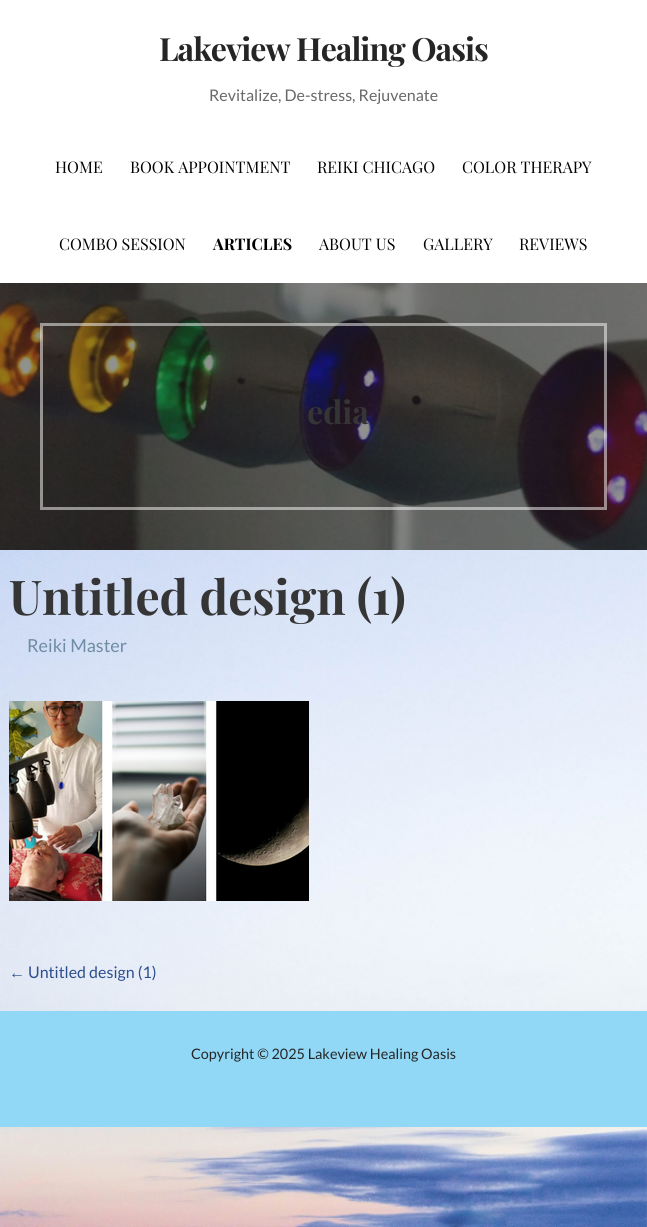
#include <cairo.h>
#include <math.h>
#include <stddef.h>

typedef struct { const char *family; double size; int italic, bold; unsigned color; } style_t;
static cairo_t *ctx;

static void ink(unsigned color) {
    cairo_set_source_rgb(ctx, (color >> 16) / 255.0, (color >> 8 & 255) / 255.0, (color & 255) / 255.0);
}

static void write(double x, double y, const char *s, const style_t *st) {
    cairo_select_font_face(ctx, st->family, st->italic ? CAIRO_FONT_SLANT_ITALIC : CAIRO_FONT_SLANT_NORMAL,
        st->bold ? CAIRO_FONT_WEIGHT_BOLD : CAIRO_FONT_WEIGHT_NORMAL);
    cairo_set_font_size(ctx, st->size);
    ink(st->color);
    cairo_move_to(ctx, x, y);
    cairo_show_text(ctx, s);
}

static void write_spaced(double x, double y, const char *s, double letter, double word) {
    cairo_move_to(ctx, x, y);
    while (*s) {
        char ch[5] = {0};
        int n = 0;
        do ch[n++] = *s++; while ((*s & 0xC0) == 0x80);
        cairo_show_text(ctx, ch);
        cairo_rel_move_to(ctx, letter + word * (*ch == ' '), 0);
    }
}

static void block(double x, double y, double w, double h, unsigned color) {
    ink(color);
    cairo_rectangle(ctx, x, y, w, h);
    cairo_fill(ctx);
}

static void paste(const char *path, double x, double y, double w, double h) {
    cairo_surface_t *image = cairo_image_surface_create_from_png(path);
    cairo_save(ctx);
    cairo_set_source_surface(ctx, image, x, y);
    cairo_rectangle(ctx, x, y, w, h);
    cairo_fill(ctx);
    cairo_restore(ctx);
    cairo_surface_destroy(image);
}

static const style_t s1 = {"Lato", 16, 0, 0, 0x686868};
static const style_t s2 = {"Playfair Display", 16, 0, 0, 0x000000};
static const style_t s3 = {"Playfair Display", 16, 0, 1, 0x000000};
static const style_t s4 = {"Playfair Display", 32, 0, 1, 0x353535};
static const style_t s5 = {"Playfair Display", 48, 0, 1, 0x353535};
static const style_t s6 = {"Lato", 18, 0, 0, 0x6f8ca5};
static const style_t s7 = {"Liberation Sans", 16, 0, 0, 0x2c4d8e};
static const style_t s8 = {"Lato", 16, 0, 0, 0x2c4d8e};
static const style_t s9 = {"Lato", 14.4, 0, 0, 0x252525};

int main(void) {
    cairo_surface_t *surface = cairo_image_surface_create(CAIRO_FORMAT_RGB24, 647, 1227);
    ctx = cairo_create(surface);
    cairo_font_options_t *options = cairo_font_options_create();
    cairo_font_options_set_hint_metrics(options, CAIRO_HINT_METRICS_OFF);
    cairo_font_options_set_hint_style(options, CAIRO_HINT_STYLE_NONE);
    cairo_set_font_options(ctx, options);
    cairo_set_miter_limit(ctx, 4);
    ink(0xffffff);
    cairo_paint(ctx);
    paste("pic1.png", 0, 550, 647, 677);
    cairo_select_font_face(ctx, "Playfair Display", CAIRO_FONT_SLANT_NORMAL, CAIRO_FONT_WEIGHT_BOLD);
    cairo_set_font_size(ctx, 32);
    ink(0x252525);
    write_spaced(159, 61, "Lakeview Healing Oasis", -1, 0);
    write(209, 101, "Revitalize, De-stress, Rejuvenate", &s1);
    write(55, 173, "HOME", &s2);
    write(130, 173, "BOOK APPOINTMENT", &s2);
    write(317, 173, "REIKI CHICAGO", &s2);
    write(462, 173, "COLOR THERAPY", &s2);
    write(59, 250, "COMBO SESSION", &s2);
    write(213, 250, "ARTICLES", &s3);
    write(319, 250, "ABOUT US", &s2);
    write(423, 250, "GALLERY", &s2);
    write(519, 250, "REVIEWS", &s2);
    paste("pic2.png", 0, 283, 647, 267);
    cairo_rectangle(ctx, 41.5, 324.5, 564, 184);
    cairo_set_source_rgba(ctx, 1, 1, 1, 0.5);
    cairo_set_line_width(ctx, 3);
    cairo_stroke(ctx);
    write(307, 424, "edia", &s4);
    write(9, 615, "Untitled design (1)", &s5);
    write(27, 652, "Reiki Master", &s6);
    paste("pic3.png", 9, 701, 300, 200);
    write(9, 978, "←", &s7);
    write(28, 978, "Untitled design (1)", &s8);
    block(0, 1011, 647, 116, 0x91d8f7);
    write(191, 1059, "Copyright © 2025 Lakeview Healing Oasis", &s9);
    cairo_surface_write_to_png(surface, "screenshot.png");
    cairo_font_options_destroy(options);
    cairo_destroy(ctx);
    cairo_surface_destroy(surface);
    return 0;
}
